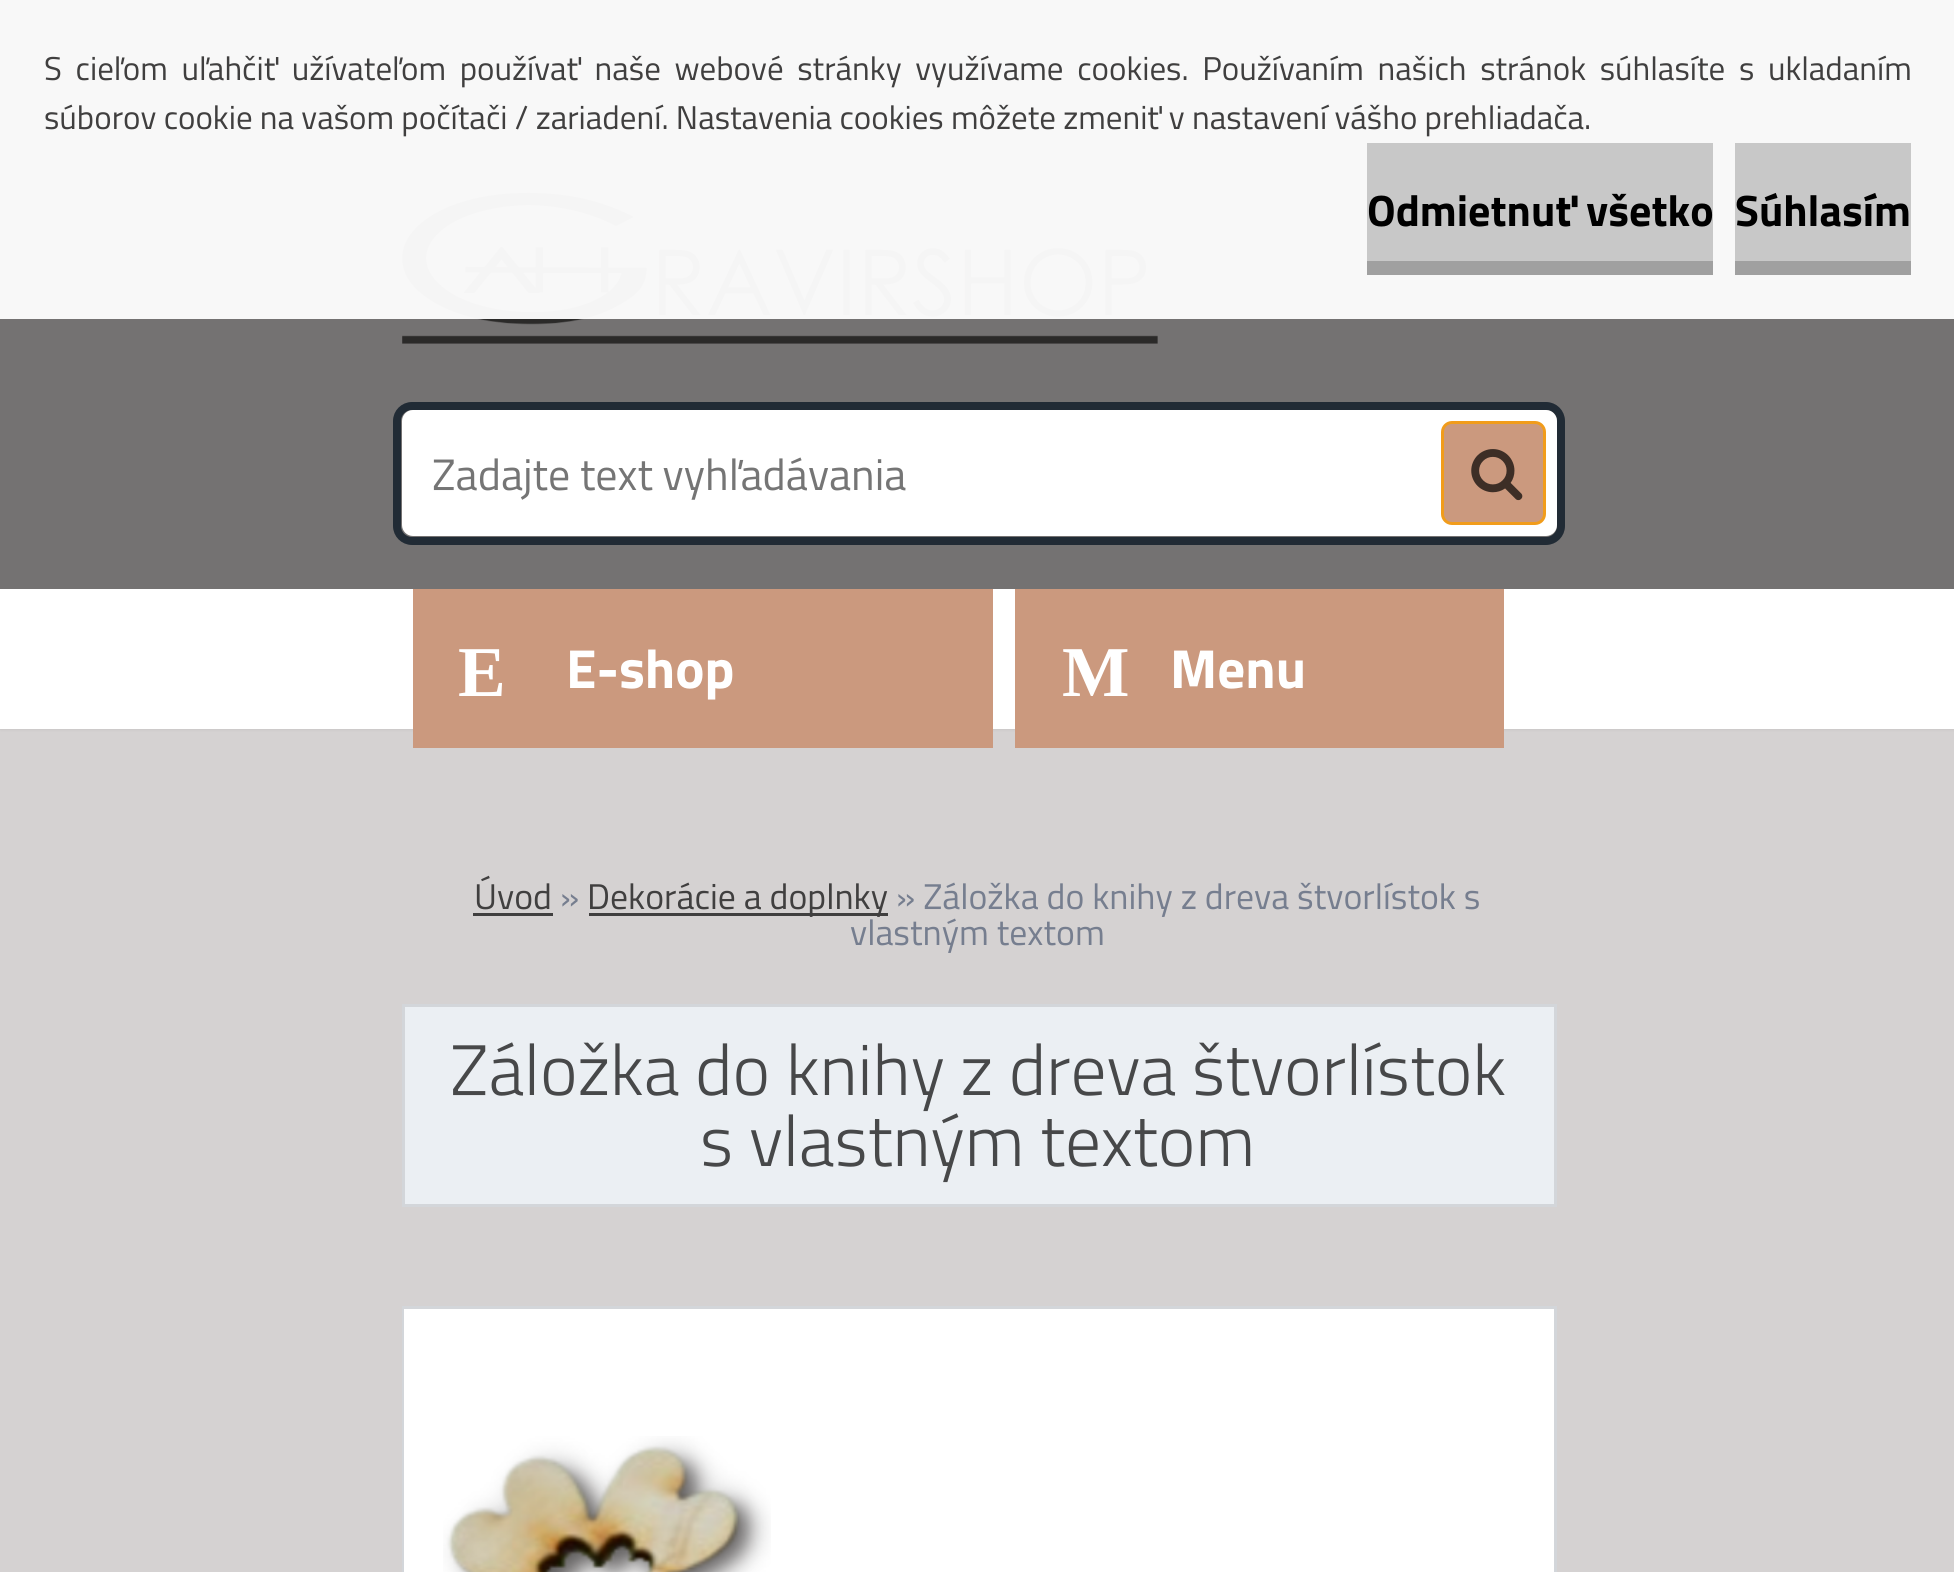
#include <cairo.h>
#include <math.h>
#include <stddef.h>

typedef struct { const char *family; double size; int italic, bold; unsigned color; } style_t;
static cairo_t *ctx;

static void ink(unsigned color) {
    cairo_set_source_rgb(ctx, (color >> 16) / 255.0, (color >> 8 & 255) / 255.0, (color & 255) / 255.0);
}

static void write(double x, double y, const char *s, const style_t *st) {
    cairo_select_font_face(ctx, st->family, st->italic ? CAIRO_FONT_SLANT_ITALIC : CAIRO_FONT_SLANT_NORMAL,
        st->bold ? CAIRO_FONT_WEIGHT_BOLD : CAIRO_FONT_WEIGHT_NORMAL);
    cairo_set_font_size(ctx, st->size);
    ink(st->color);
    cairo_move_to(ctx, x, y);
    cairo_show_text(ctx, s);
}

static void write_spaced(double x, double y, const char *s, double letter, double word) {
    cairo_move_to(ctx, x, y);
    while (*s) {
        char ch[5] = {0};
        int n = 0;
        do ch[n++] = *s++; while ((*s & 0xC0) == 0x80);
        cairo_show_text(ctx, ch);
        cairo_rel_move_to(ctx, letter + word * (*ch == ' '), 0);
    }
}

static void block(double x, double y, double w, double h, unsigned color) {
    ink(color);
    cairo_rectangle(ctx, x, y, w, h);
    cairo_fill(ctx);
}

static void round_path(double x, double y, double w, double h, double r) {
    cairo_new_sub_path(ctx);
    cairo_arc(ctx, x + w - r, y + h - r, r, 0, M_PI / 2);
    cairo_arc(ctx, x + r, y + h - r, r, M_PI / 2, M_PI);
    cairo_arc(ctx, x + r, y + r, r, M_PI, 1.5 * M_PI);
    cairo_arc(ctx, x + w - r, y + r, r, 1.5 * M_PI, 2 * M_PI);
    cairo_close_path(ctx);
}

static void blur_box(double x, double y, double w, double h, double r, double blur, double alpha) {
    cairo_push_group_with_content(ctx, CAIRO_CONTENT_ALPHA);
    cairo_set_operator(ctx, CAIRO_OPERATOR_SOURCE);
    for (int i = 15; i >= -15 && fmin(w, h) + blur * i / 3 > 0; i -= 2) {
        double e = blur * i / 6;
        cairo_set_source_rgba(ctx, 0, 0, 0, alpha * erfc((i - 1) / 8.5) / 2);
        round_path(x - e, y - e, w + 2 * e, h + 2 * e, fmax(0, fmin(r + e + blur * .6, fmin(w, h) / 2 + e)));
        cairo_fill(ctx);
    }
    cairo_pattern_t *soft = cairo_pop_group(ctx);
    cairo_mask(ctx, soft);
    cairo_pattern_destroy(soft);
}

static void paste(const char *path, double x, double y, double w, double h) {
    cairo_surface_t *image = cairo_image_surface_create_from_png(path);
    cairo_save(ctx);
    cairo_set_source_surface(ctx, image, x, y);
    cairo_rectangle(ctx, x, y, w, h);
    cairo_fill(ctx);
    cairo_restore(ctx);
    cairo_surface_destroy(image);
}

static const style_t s1 = {"Titillium Web", 33, 0, 0, 0x403f3f};
static const style_t s2 = {"Titillium Web", 44, 0, 1, 0x000000};
static const style_t s3 = {"Titillium Web", 44, 0, 0, 0x757575};
static const style_t s4 = {"Liberation Serif", 71.5, 0, 1, 0xffffff};
static const style_t s5 = {"Titillium Web", 55, 0, 1, 0xffffff};
static const style_t s6 = {"Titillium Web", 35.75, 0, 0, 0x403f3f};
static const style_t s7 = {"Titillium Web", 35.75, 0, 0, 0x767e8f};
static const style_t s8 = {"Titillium Web Light", 71.5, 0, 0, 0x474849};

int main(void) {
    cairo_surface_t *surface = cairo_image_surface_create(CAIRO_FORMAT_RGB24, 1954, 1572);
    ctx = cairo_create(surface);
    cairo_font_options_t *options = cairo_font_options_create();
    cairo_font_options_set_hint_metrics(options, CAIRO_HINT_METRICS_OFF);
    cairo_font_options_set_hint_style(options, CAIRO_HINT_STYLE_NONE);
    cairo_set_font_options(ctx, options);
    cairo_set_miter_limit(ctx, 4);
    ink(0xd5d2d2);
    cairo_paint(ctx);
    ink(0x000000);
    blur_box(0, 0, 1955, 729, 0, 1.5, 0.1);
    block(0, 0, 1954, 589, 0x747272);
    paste("pic1.png", 402, 192, 756, 152);
    cairo_set_source_rgba(ctx, 1, 1, 1, 0.95);
    cairo_rectangle(ctx, 0, 0, 1954, 319);
    cairo_fill(ctx);
    cairo_select_font_face(ctx, "Titillium Web", CAIRO_FONT_SLANT_NORMAL, CAIRO_FONT_WEIGHT_NORMAL);
    cairo_set_font_size(ctx, 33);
    ink(0x403f3f);
    write_spaced(44, 80, "S cieľom uľahčiť užívateľom používať naše webové stránky využívame cookies. Používaním našich stránok súhlasíte s ukladaním", 0, 6.4);
    write(44, 129, "súborov cookie na vašom počítači / zariadení. Nastavenia cookies môžete zmeniť v nastavení vášho prehliadača.", &s1);
    block(1367, 143, 346, 118, 0xc8c8c8);
    block(1367, 261, 346, 14, 0xa0a0a0);
    write(1367, 226, "Odmietnuť všetko", &s2);
    block(1735, 143, 176, 118, 0xc8c8c8);
    block(1735, 261, 176, 14, 0xa0a0a0);
    write(1735, 226, "Súhlasím", &s2);
    block(0, 589, 1954, 140, 0xffffff);
    round_path(397, 406, 1164, 135, 15);
    ink(0x212b35);
    cairo_set_line_width(ctx, 8);
    cairo_stroke(ctx);
    ink(0xffffff);
    round_path(402, 410, 1155, 126, 11);
    cairo_fill(ctx);
    write(432, 490, "Zadajte text vyhľadávania", &s3);
    ink(0xcb997e);
    round_path(1442.5, 422.5, 102, 101, 9.5);
    cairo_fill_preserve(ctx);
    ink(0xf19c1b);
    cairo_set_line_width(ctx, 3);
    cairo_stroke(ctx);
    paste("pic2.png", 1471, 449, 52, 52);
    block(589, 913, 299, 3, 0x403f3f);
    block(473, 913, 80, 3, 0x403f3f);
    block(413, 589, 580, 159, 0xcb997e);
    write(458, 696, "E", &s4);
    write(566, 688, "E-shop", &s5);
    block(1015, 589, 489, 159, 0xcb997e);
    write(1062, 696, "M", &s4);
    write(1170, 688, "Menu", &s5);
    write(474, 909, "Úvod", &s6);
    write(560, 909, "»", &s7);
    write(587, 909, "Dekorácie a doplnky", &s6);
    write(896, 909, "» Záložka do knihy z dreva štvorlístok s", &s7);
    write(850, 945, "vlastným textom", &s7);
    ink(0xebeff3);
    cairo_rectangle(ctx, 403.5, 1005.5, 1152, 200);
    cairo_fill_preserve(ctx);
    ink(0xd3d6da);
    cairo_stroke(ctx);
    write(450, 1095, "Záložka do knihy z dreva štvorlístok", &s8);
    write(700, 1166, "s vlastným textom", &s8);
    cairo_rectangle(ctx, 403.5, 1307.5, 1152, 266);
    ink(0xd3d6da);
    cairo_stroke(ctx);
    block(404, 1309, 1150, 263, 0xffffff);
    paste("pic3.png", 443, 1436, 328, 136);
    cairo_surface_write_to_png(surface, "screenshot.png");
    cairo_font_options_destroy(options);
    cairo_destroy(ctx);
    cairo_surface_destroy(surface);
    return 0;
}
